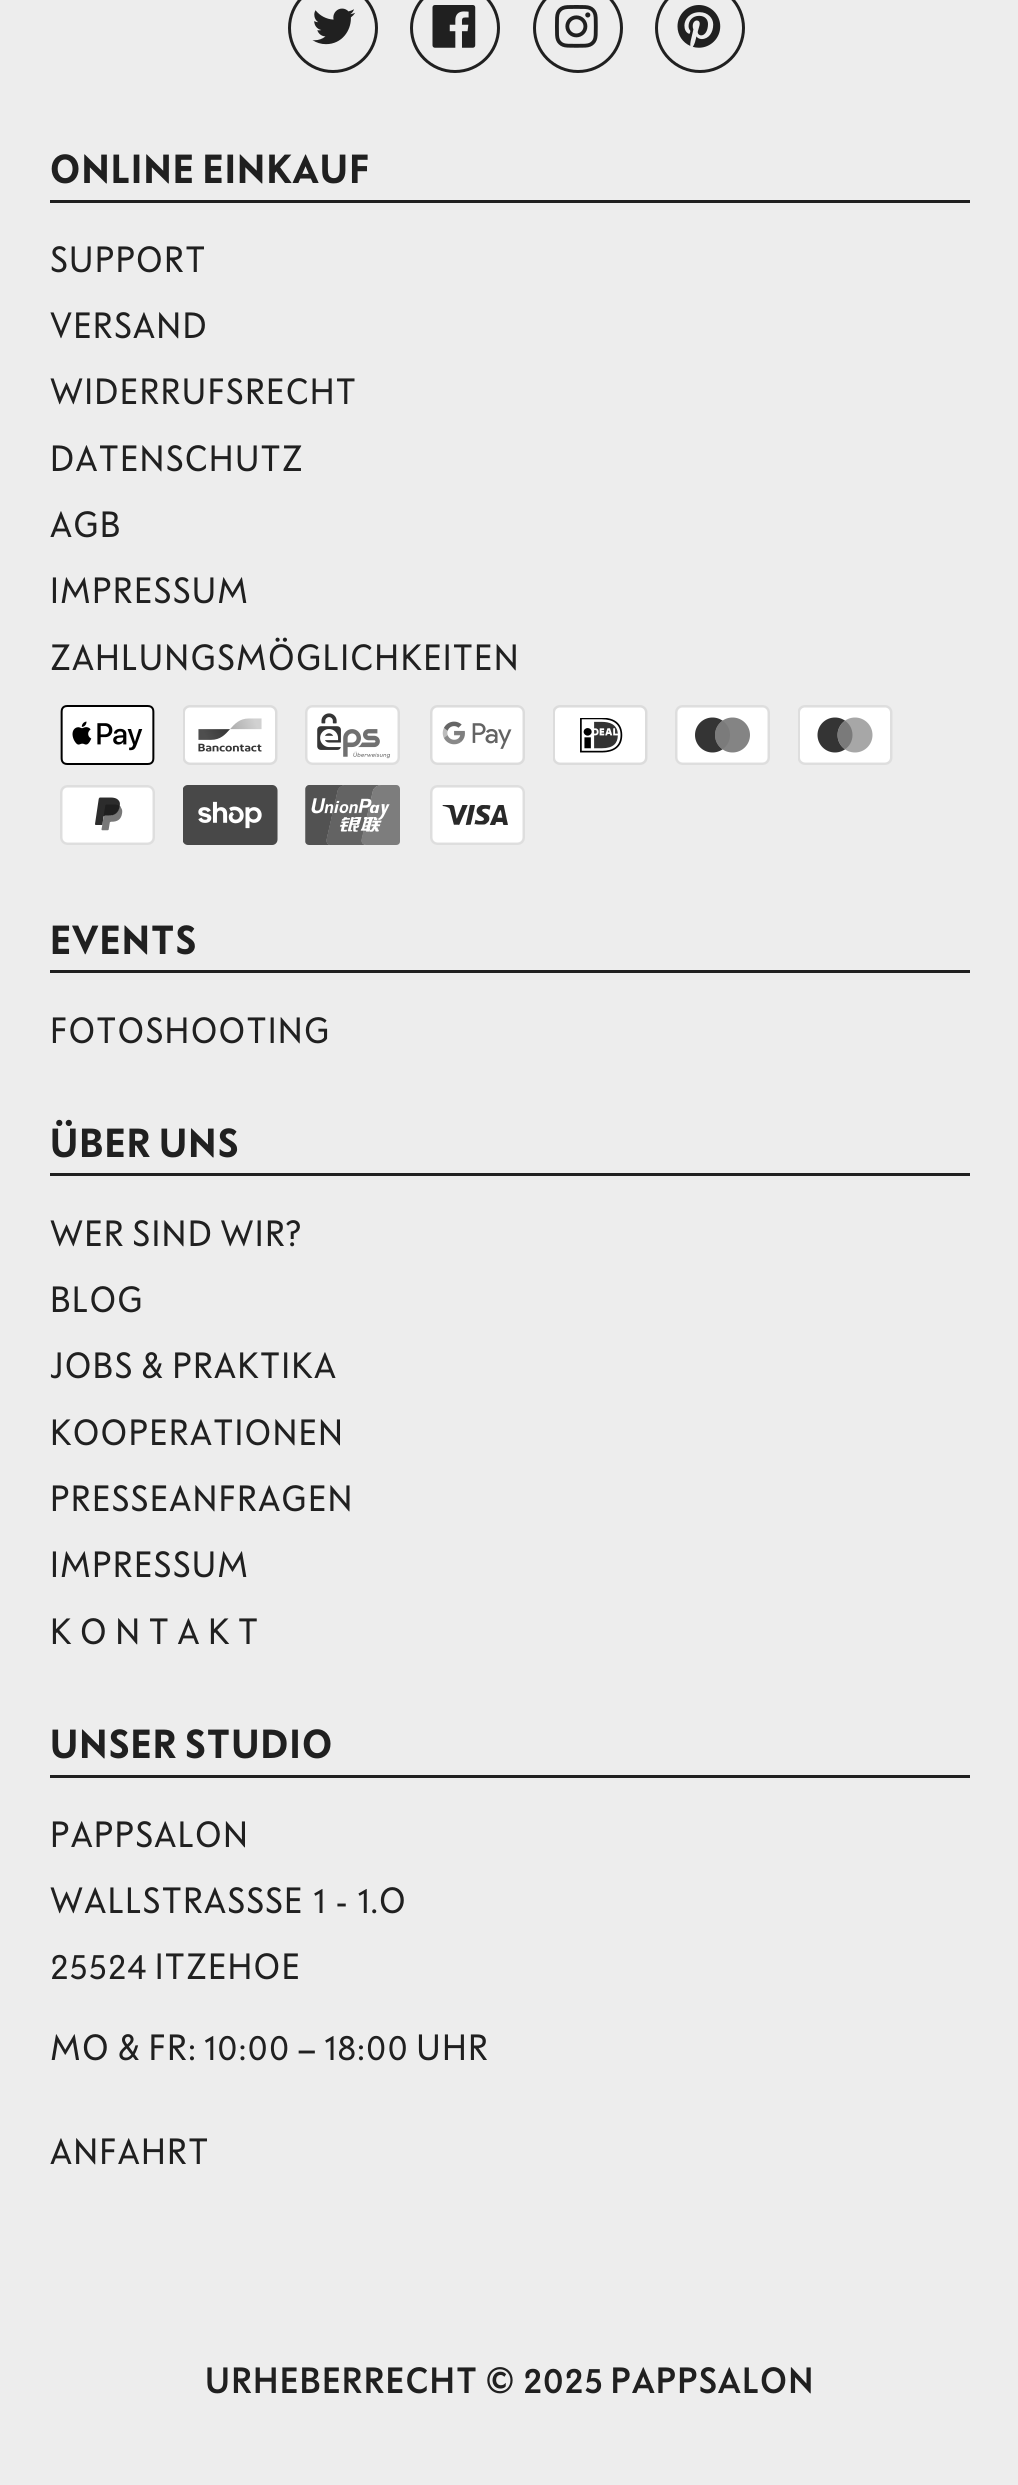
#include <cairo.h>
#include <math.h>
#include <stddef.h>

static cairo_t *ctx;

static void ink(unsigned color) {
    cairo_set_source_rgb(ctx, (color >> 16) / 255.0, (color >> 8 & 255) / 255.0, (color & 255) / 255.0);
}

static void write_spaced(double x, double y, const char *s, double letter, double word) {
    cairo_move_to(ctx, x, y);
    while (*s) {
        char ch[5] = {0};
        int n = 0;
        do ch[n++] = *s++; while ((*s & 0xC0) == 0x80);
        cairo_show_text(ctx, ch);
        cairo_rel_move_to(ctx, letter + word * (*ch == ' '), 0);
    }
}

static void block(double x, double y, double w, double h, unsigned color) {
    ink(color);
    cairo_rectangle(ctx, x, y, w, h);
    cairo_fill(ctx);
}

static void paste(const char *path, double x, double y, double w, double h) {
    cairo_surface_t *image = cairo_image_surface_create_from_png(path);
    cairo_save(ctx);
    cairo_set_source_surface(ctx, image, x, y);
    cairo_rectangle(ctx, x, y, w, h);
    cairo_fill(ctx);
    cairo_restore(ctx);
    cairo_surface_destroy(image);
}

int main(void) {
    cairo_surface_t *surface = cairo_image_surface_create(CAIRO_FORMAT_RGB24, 1018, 2485);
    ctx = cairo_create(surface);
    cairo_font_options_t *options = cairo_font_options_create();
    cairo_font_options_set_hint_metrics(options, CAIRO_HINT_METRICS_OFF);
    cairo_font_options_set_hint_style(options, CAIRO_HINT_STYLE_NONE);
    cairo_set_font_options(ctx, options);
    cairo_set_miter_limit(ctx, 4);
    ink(0xededed);
    cairo_paint(ctx);
    cairo_arc(ctx, 333, 28, 43.5, 0, 2 * M_PI);
    ink(0x202020);
    cairo_set_line_width(ctx, 3);
    cairo_stroke(ctx);
    paste("pic1.png", 312, 8, 44, 37);
    cairo_arc(ctx, 455, 28, 43.5, 0, 2 * M_PI);
    cairo_stroke(ctx);
    paste("pic2.png", 432, 5, 44, 43);
    cairo_arc(ctx, 578, 28, 43.5, 0, 2 * M_PI);
    cairo_stroke(ctx);
    paste("pic3.png", 555, 5, 43, 43);
    cairo_arc(ctx, 700, 28, 43.5, 0, 2 * M_PI);
    cairo_stroke(ctx);
    paste("pic4.png", 677, 5, 44, 43);
    block(50, 200, 920, 3, 0x202020);
    cairo_select_font_face(ctx, "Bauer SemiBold", CAIRO_FONT_SLANT_NORMAL, CAIRO_FONT_WEIGHT_NORMAL);
    cairo_set_font_size(ctx, 40);
    write_spaced(50, 183, "ONLINE EINKAUF", 1.25, 0);
    cairo_select_font_face(ctx, "Bauer", CAIRO_FONT_SLANT_NORMAL, CAIRO_FONT_WEIGHT_NORMAL);
    cairo_set_font_size(ctx, 36);
    write_spaced(50, 272, "SUPPORT", 1.25, 0);
    write_spaced(50, 338, "VERSAND", 1.25, 0);
    write_spaced(50, 404, "WIDERRUFSRECHT", 1.25, 0);
    write_spaced(50, 471, "DATENSCHUTZ", 1.25, 0);
    write_spaced(50, 537, "AGB", 1.25, 0);
    write_spaced(50, 603, "IMPRESSUM", 1.25, 0);
    write_spaced(50, 670, "ZAHLUNGSMÖGLICHKEITEN", 1.25, 0);
    paste("pic5.png", 60, 705, 95, 60);
    paste("pic6.png", 183, 705, 95, 60);
    paste("pic7.png", 305, 705, 95, 60);
    paste("pic8.png", 430, 705, 95, 60);
    paste("pic9.png", 553, 705, 95, 60);
    paste("pic10.png", 675, 705, 95, 60);
    paste("pic11.png", 798, 705, 95, 60);
    paste("pic12.png", 60, 785, 95, 60);
    paste("pic13.png", 183, 785, 95, 60);
    paste("pic14.png", 305, 785, 95, 60);
    paste("pic15.png", 430, 785, 95, 60);
    block(50, 970, 920, 3, 0x202020);
    cairo_select_font_face(ctx, "Bauer SemiBold", CAIRO_FONT_SLANT_NORMAL, CAIRO_FONT_WEIGHT_NORMAL);
    cairo_set_font_size(ctx, 40);
    write_spaced(50, 954, "EVENTS", 1.25, 0);
    cairo_select_font_face(ctx, "Bauer", CAIRO_FONT_SLANT_NORMAL, CAIRO_FONT_WEIGHT_NORMAL);
    cairo_set_font_size(ctx, 36);
    write_spaced(50, 1043, "FOTOSHOOTING", 1.25, 0);
    block(50, 1173, 920, 3, 0x202020);
    cairo_select_font_face(ctx, "Bauer SemiBold", CAIRO_FONT_SLANT_NORMAL, CAIRO_FONT_WEIGHT_NORMAL);
    cairo_set_font_size(ctx, 40);
    write_spaced(50, 1157, "ÜBER UNS", 1.25, 0);
    cairo_select_font_face(ctx, "Bauer", CAIRO_FONT_SLANT_NORMAL, CAIRO_FONT_WEIGHT_NORMAL);
    cairo_set_font_size(ctx, 36);
    write_spaced(50, 1246, "WER SIND WIR?", 1.25, 0);
    write_spaced(50, 1312, "BLOG", 1.25, 0);
    write_spaced(50, 1378, "JOBS & PRAKTIKA", 1.25, 0);
    write_spaced(50, 1445, "KOOPERATIONEN", 1.25, 0);
    write_spaced(50, 1511, "PRESSEANFRAGEN", 1.25, 0);
    write_spaced(50, 1577, "IMPRESSUM", 1.25, 0);
    write_spaced(50, 1644, "K O N T A K T", 1.25, 0);
    block(50, 1775, 920, 3, 0x202020);
    cairo_select_font_face(ctx, "Bauer SemiBold", CAIRO_FONT_SLANT_NORMAL, CAIRO_FONT_WEIGHT_NORMAL);
    cairo_set_font_size(ctx, 40);
    write_spaced(50, 1758, "UNSER STUDIO", 1.25, 0);
    cairo_select_font_face(ctx, "Bauer", CAIRO_FONT_SLANT_NORMAL, CAIRO_FONT_WEIGHT_NORMAL);
    cairo_set_font_size(ctx, 36);
    write_spaced(50, 1847, "PAPPSALON", 1.25, 0);
    write_spaced(50, 1913, "WALLSTRASS", 1.25, 0);
    write_spaced(265, 1913, "SE 1 - 1.O", 1.25, 2.5);
    write_spaced(50, 1979, "25524 ITZEHOE", 1.25, 0);
    write_spaced(50, 2060, "MO & FR: 10:00 – 18:00 UHR", 1.25, 0);
    write_spaced(50, 2164, "ANFAHRT", 1.25, 0);
    cairo_select_font_face(ctx, "Bauer Medium", CAIRO_FONT_SLANT_NORMAL, CAIRO_FONT_WEIGHT_NORMAL);
    write_spaced(205, 2393, "URHEBERRECHT © 2025 PAPPSALON", 1.25, 0);
    cairo_surface_write_to_png(surface, "screenshot.png");
    cairo_font_options_destroy(options);
    cairo_destroy(ctx);
    cairo_surface_destroy(surface);
    return 0;
}
